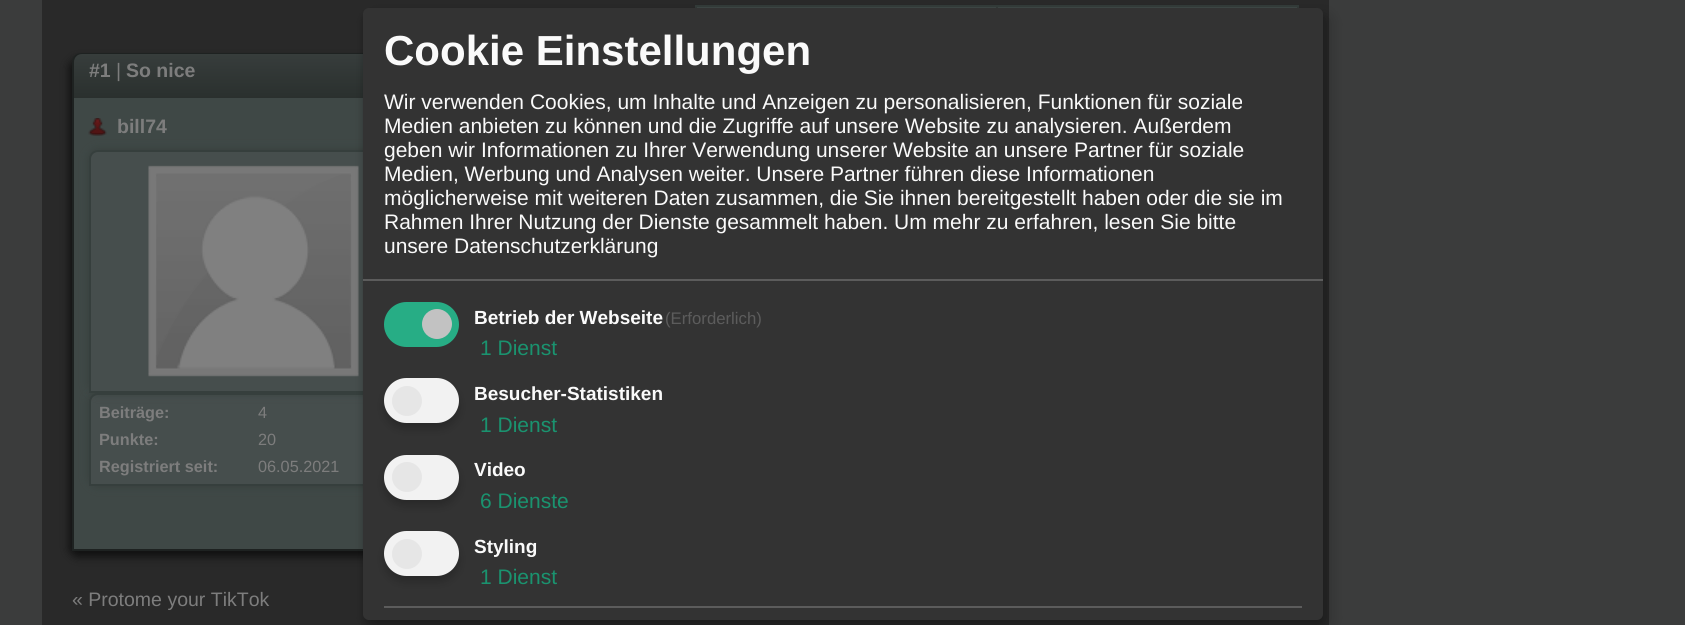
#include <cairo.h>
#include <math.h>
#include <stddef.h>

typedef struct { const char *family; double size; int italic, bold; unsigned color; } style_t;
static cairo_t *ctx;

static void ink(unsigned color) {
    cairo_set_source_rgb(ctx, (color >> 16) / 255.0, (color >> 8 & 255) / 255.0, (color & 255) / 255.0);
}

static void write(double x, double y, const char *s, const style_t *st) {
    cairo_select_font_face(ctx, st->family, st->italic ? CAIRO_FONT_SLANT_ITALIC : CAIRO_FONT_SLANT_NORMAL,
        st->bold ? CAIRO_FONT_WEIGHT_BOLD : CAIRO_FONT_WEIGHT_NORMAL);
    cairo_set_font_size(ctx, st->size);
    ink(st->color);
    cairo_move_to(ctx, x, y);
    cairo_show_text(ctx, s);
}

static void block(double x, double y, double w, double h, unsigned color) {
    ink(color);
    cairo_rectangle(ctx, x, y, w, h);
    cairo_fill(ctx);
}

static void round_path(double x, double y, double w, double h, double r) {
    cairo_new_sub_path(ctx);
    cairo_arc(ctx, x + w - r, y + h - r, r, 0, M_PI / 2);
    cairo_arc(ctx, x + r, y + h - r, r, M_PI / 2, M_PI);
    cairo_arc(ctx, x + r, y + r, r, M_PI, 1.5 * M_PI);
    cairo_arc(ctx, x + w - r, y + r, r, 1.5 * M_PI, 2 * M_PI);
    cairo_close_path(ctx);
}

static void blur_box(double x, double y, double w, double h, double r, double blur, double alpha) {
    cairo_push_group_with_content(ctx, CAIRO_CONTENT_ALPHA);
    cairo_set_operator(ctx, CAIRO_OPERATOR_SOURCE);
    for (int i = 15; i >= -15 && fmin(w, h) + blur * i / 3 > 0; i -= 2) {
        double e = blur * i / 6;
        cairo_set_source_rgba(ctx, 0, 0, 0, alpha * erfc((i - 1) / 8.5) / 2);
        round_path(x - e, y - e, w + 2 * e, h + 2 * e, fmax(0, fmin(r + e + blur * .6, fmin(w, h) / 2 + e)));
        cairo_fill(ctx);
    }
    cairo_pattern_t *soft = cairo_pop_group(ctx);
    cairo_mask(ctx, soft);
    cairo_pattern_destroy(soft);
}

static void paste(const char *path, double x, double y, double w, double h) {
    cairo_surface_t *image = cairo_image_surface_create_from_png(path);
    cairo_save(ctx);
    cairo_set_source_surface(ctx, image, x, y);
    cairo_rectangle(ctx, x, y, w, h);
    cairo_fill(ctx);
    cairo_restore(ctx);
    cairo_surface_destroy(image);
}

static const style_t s1 = {"Liberation Sans", 19.5, 0, 1, 0x7d7d7d};
static const style_t s2 = {"Liberation Sans", 19.5, 0, 0, 0x7d7d7d};
static const style_t s3 = {"Liberation Sans", 16.25, 0, 1, 0x7d7d7d};
static const style_t s4 = {"Liberation Sans", 16.25, 0, 0, 0x7d7d7d};
static const style_t s5 = {"Liberation Sans", 42, 0, 1, 0xfafafa};
static const style_t s6 = {"Liberation Sans", 21, 0, 0, 0xfafafa};
static const style_t s7 = {"Liberation Sans", 19, 0, 1, 0xfafafa};
static const style_t s8 = {"Liberation Sans", 16.75, 0, 0, 0x5c5c5c};
static const style_t s9 = {"Liberation Sans", 21, 0, 0, 0x1a936f};

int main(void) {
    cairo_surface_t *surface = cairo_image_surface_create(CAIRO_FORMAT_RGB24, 1685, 625);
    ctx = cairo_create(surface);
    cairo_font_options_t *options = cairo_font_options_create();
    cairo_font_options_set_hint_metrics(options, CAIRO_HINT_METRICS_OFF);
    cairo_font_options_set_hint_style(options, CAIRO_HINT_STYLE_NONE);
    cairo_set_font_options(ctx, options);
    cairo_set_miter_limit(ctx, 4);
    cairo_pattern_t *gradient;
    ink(0x3b3c3c);
    cairo_paint(ctx);
    block(42, 0, 1287, 625, 0x292929);
    block(697, 7, 600, 1, 0x3f4846);
    cairo_rectangle(ctx, 696, 6, 602, 31);
    ink(0x333b39);
    cairo_stroke(ctx);
    block(996, 7, 2, 1, 0x333b39);
    ink(0x101010);
    blur_box(69, 59, 1227, 498, 9, 4.5, 1);
    cairo_new_path(ctx);
    cairo_move_to(ctx, 81, 54);
    cairo_line_to(ctx, 1290, 54);
    cairo_curve_to(ctx, 1294.5, 54, 1298, 57.5, 1298, 62);
    cairo_line_to(ctx, 1298, 550);
    cairo_line_to(ctx, 73, 550);
    cairo_line_to(ctx, 73, 62);
    cairo_curve_to(ctx, 73, 57.5, 76.5, 54, 81, 54);
    cairo_close_path(ctx);
    ink(0x1e2221);
    cairo_stroke(ctx);
    gradient = cairo_pattern_create_linear(74, 54, 74, 98);
    cairo_pattern_add_color_stop_rgba(gradient, 0, 0.216, 0.239, 0.235, 1);
    cairo_pattern_add_color_stop_rgba(gradient, 1, 0.165, 0.188, 0.18, 1);
    cairo_set_source(ctx, gradient);
    cairo_pattern_destroy(gradient);
    cairo_new_path(ctx);
    cairo_move_to(ctx, 82, 54);
    cairo_line_to(ctx, 1290, 54);
    cairo_curve_to(ctx, 1294.5, 54, 1298, 57.5, 1298, 62);
    cairo_line_to(ctx, 1298, 98);
    cairo_line_to(ctx, 74, 98);
    cairo_line_to(ctx, 74, 62);
    cairo_curve_to(ctx, 74, 57.5, 77.5, 54, 82, 54);
    cairo_close_path(ctx);
    cairo_fill(ctx);
    write(89, 77, "#1", &s1);
    write(116, 77, "|", &s2);
    write(126, 77, "So nice", &s1);
    block(74, 98, 289, 451, 0x3f4846);
    paste("pic1.png", 88, 118, 19, 18);
    write(117, 133, "bill74", &s1);
    ink(0x363f3d);
    blur_box(89, 393, 330, 93, 9, 4.5, 1);
    ink(0x464e4d);
    cairo_new_path(ctx);
    cairo_move_to(ctx, 98, 394);
    cairo_line_to(ctx, 410, 394);
    cairo_curve_to(ctx, 414.5, 394, 418, 397.5, 418, 402);
    cairo_line_to(ctx, 418, 485);
    cairo_line_to(ctx, 90, 485);
    cairo_line_to(ctx, 90, 402);
    cairo_curve_to(ctx, 90, 397.5, 93.5, 394, 98, 394);
    cairo_close_path(ctx);
    cairo_fill_preserve(ctx);
    ink(0x363f3d);
    cairo_stroke(ctx);
    ink(0x363f3d);
    blur_box(89, 150, 330, 243, 9, 4.5, 1);
    ink(0x464e4d);
    cairo_new_path(ctx);
    cairo_move_to(ctx, 98, 151);
    cairo_line_to(ctx, 410, 151);
    cairo_curve_to(ctx, 414.5, 151, 418, 154.5, 418, 159);
    cairo_line_to(ctx, 418, 392);
    cairo_line_to(ctx, 90, 392);
    cairo_line_to(ctx, 90, 159);
    cairo_curve_to(ctx, 90, 154.5, 93.5, 151, 98, 151);
    cairo_close_path(ctx);
    cairo_fill_preserve(ctx);
    ink(0x363f3d);
    cairo_stroke(ctx);
    paste("pic2.png", 148, 165, 211, 212);
    write(99, 418, "Beiträge:", &s3);
    write(258, 418, "4", &s4);
    write(99, 445, "Punkte:", &s3);
    write(258, 445, "20", &s4);
    write(99, 472, "Registriert seit:", &s3);
    write(258, 472, "06.05.2021", &s4);
    write(72, 606, "« Protome your TikTok", &s2);
    ink(0x000000);
    blur_box(371, 15, 960, 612, 6, 7.5, 0.19);
    blur_box(363, 14, 960, 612, 6, 4.5, 0.2);
    ink(0x333333);
    round_path(363, 8, 960, 612, 6);
    cairo_fill(ctx);
    block(363, 279, 960, 2, 0x5c5c5c);
    write(384, 65, "Cookie Einstellungen", &s5);
    write(384, 109, "Wir verwenden Cookies, um Inhalte und Anzeigen zu personalisieren, Funktionen für soziale", &s6);
    write(384, 133, "Medien anbieten zu können und die Zugriffe auf unsere Website zu analysieren. Außerdem", &s6);
    write(384, 157, "geben wir Informationen zu Ihrer Verwendung unserer Website an unsere Partner für soziale", &s6);
    write(384, 181, "Medien, Werbung und Analysen weiter. Unsere Partner führen diese Informationen", &s6);
    write(384, 205, "möglicherweise mit weiteren Daten zusammen, die Sie ihnen bereitgestellt haben oder die sie im", &s6);
    write(384, 229, "Rahmen Ihrer Nutzung der Dienste gesammelt haben. Um mehr zu erfahren, lesen Sie bitte", &s6);
    write(384, 253, "unsere Datenschutzerklärung", &s6);
    ink(0x27ad85);
    round_path(384, 302, 75, 45, 22.5);
    cairo_fill(ctx);
    ink(0xc2c2c2);
    cairo_arc(ctx, 437, 324, 15, 0, 2 * M_PI);
    cairo_fill(ctx);
    write(474, 324, "Betrieb der Webseite", &s7);
    write(665, 324, "(Erforderlich)", &s8);
    write(480, 355, "1 Dienst", &s9);
    ink(0x000000);
    blur_box(384, 384, 75, 45, 22.5, 4.5, 0.2);
    ink(0xf2f2f2);
    round_path(384, 378, 75, 45, 22.5);
    cairo_fill(ctx);
    ink(0xe6e6e6);
    cairo_arc(ctx, 407, 401, 15, 0, 2 * M_PI);
    cairo_fill(ctx);
    write(474, 400, "Besucher-Statistiken", &s7);
    write(480, 432, "1 Dienst", &s9);
    ink(0x000000);
    blur_box(384, 461, 75, 45, 22.5, 4.5, 0.2);
    ink(0xf2f2f2);
    round_path(384, 455, 75, 45, 22.5);
    cairo_fill(ctx);
    ink(0xe6e6e6);
    cairo_arc(ctx, 407, 477, 15, 0, 2 * M_PI);
    cairo_fill(ctx);
    write(474, 476, "Video", &s7);
    write(480, 508, "6 Dienste", &s9);
    ink(0x000000);
    blur_box(384, 537, 75, 45, 22.5, 4.5, 0.2);
    ink(0xf2f2f2);
    round_path(384, 531, 75, 45, 22.5);
    cairo_fill(ctx);
    ink(0xe6e6e6);
    cairo_arc(ctx, 407, 554, 15, 0, 2 * M_PI);
    cairo_fill(ctx);
    write(474, 553, "Styling", &s7);
    write(480, 584, "1 Dienst", &s9);
    block(384, 606, 918, 2, 0x5c5c5c);
    cairo_surface_write_to_png(surface, "screenshot.png");
    cairo_font_options_destroy(options);
    cairo_destroy(ctx);
    cairo_surface_destroy(surface);
    return 0;
}
